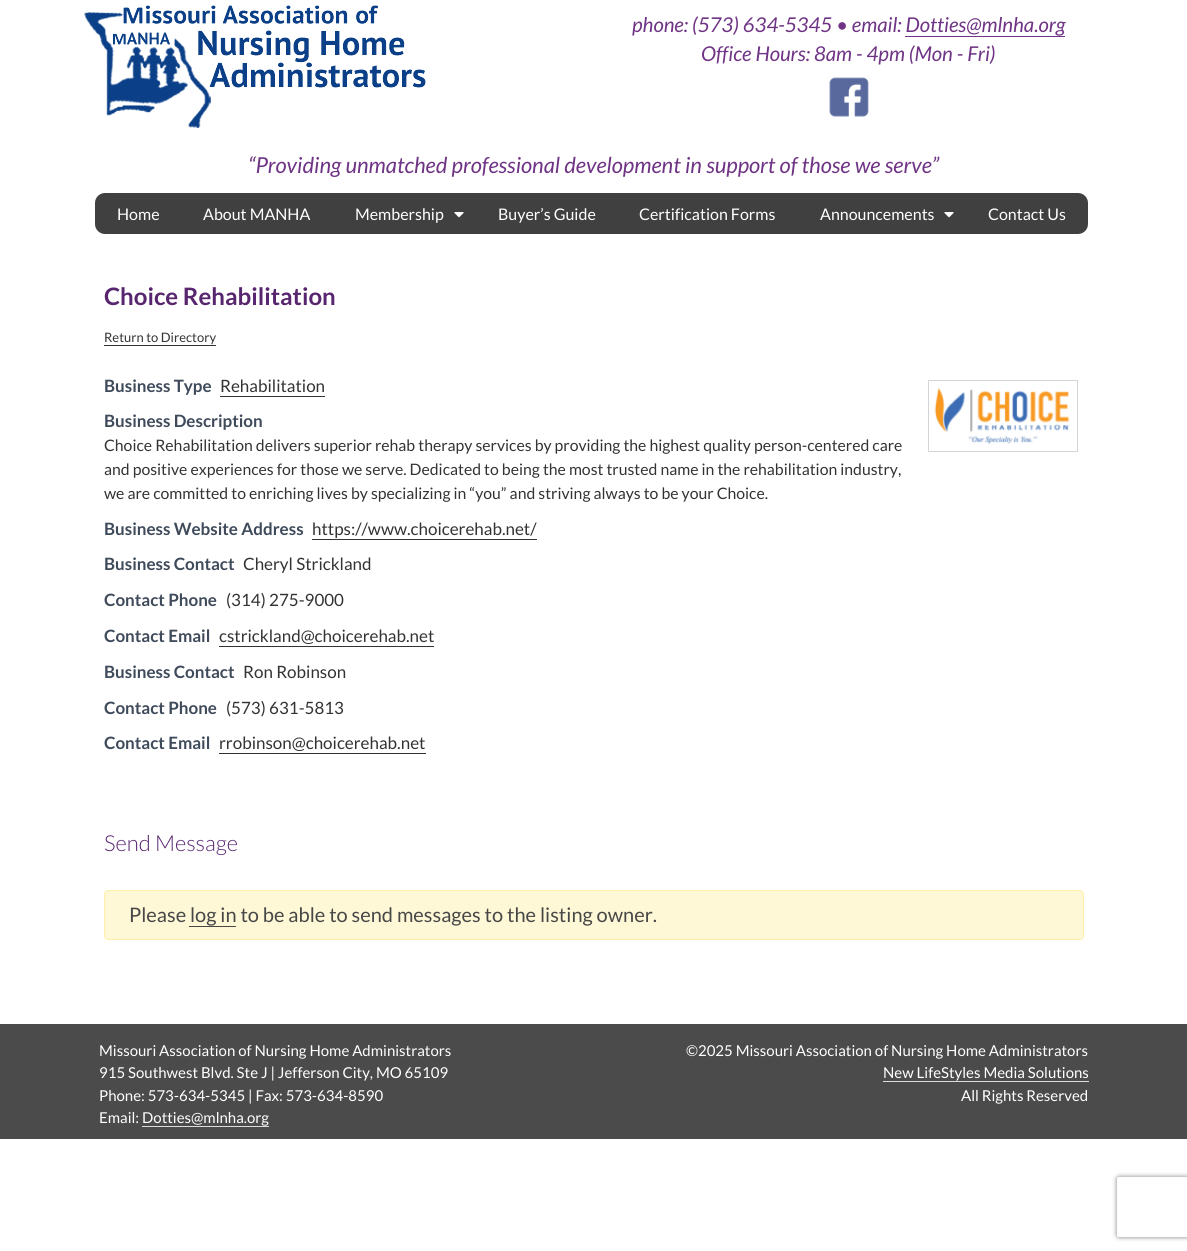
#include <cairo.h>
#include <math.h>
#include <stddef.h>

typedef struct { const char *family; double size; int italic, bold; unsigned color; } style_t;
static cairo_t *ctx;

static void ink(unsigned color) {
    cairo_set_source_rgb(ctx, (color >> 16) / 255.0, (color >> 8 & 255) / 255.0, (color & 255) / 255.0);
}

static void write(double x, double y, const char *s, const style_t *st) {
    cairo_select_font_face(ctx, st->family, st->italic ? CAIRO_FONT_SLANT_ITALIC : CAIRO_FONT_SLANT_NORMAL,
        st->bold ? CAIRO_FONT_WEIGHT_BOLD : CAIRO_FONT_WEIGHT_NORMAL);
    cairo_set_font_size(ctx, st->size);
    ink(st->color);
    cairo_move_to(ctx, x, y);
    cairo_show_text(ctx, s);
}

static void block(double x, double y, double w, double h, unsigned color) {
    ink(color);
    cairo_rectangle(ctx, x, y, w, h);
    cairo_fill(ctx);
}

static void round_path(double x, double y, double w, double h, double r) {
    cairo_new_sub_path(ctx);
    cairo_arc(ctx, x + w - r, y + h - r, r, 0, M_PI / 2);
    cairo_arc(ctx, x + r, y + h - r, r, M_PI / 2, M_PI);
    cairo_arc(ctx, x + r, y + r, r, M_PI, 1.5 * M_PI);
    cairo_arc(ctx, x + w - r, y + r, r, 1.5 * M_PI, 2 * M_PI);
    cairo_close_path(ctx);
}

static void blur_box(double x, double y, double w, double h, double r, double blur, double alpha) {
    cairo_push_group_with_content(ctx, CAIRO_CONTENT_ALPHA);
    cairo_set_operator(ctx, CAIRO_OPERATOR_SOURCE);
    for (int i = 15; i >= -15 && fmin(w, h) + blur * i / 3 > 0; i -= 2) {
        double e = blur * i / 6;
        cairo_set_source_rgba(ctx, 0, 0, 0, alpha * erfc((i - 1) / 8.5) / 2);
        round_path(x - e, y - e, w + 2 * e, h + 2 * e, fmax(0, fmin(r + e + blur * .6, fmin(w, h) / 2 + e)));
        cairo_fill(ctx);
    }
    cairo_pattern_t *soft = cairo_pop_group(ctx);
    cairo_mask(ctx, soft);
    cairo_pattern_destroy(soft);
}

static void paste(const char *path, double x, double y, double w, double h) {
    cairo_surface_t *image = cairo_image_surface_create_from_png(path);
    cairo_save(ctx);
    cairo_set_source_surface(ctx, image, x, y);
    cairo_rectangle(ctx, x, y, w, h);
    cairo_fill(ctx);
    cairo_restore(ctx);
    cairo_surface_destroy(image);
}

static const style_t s1 = {"Lato", 20.4, 1, 0, 0x6f3485};
static const style_t s2 = {"Lato", 22, 1, 0, 0x6f3485};
static const style_t s3 = {"Lato", 16, 0, 0, 0xffffff};
static const style_t s4 = {"Lato", 24, 0, 1, 0x58256f};
static const style_t s5 = {"Lato", 13, 0, 0, 0x333333};
static const style_t s6 = {"Lato", 17, 0, 1, 0x3f4b5b};
static const style_t s7 = {"Lato", 17, 0, 0, 0x333333};
static const style_t s8 = {"Lato", 15.8, 0, 0, 0x333333};
static const style_t s9 = {"Lato Light", 22, 0, 0, 0x58256f};
static const style_t s10 = {"Lato", 20, 0, 0, 0x474747};
static const style_t s11 = {"Lato", 15, 0, 0, 0xffffff};

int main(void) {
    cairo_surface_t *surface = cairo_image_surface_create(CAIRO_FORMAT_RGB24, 1187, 1251);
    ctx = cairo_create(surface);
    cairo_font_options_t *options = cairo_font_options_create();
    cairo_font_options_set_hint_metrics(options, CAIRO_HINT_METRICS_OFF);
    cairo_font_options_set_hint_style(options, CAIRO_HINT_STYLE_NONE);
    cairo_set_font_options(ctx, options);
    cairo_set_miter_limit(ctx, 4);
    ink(0xffffff);
    cairo_paint(ctx);
    paste("pic1.png", 84, 5, 342, 123);
    write(632, 32, "phone: (573) 634-5345 • email: Dotties@mlnha.org", &s1);
    block(905, 36, 160, 1, 0x6f3485);
    write(701, 61, "Office Hours: 8am - 4pm (Mon - Fri)", &s1);
    paste("pic2.png", 829, 77, 40, 40);
    write(248, 173, "“Providing unmatched professional development in support of those we serve”", &s2);
    ink(0x404040);
    round_path(95, 193, 993, 41, 10);
    cairo_fill(ctx);
    write(117, 220, "Home", &s3);
    write(203, 220, "About MANHA", &s3);
    write(355, 220, "Membership", &s3);
    paste("pic3.png", 454, 212, 10, 6);
    write(498, 220, "Buyer’s Guide", &s3);
    write(639, 220, "Certification Forms", &s3);
    write(820, 220, "Announcements", &s3);
    paste("pic3.png", 944, 212, 10, 6);
    write(988, 220, "Contact Us", &s3);
    write(104, 305, "Choice Rehabilitation", &s4);
    write(104, 342, "Return to Directory", &s5);
    block(104, 345, 112, 1, 0x333333);
    write(104, 392, "Business Type", &s6);
    write(220, 392, "Rehabilitation", &s7);
    block(220, 396, 105, 1, 0x333333);
    write(104, 427, "Business Description", &s6);
    write(104, 451, "Choice Rehabilitation delivers superior rehab therapy services by providing the highest quality person-centered care", &s8);
    write(104, 475, "and positive experiences for those we serve. Dedicated to being the most trusted name in the rehabilitation industry,", &s8);
    write(104, 499, "we are committed to enriching lives by specializing in “you” and striving always to be your Choice.", &s8);
    write(104, 535, "Business Website Address", &s6);
    write(312, 535, "https://www.choicerehab.net/", &s7);
    block(312, 539, 225, 1, 0x333333);
    write(104, 570, "Business Contact", &s6);
    write(243, 570, "Cheryl Strickland", &s7);
    write(104, 606, "Contact Phone", &s6);
    write(226, 606, "(314) 275-9000", &s7);
    write(104, 642, "Contact Email", &s6);
    write(219, 642, "cstrickland@choicerehab.net", &s7);
    block(219, 646, 215, 1, 0x333333);
    write(104, 678, "Business Contact", &s6);
    write(243, 678, "Ron Robinson", &s7);
    write(104, 714, "Contact Phone", &s6);
    write(226, 714, "(573) 631-5813", &s7);
    write(104, 749, "Contact Email", &s6);
    write(219, 749, "rrobinson@choicerehab.net", &s7);
    block(219, 753, 207, 1, 0x333333);
    cairo_rectangle(ctx, 928.5, 380.5, 149, 71);
    ink(0xd4d4d4);
    cairo_set_line_width(ctx, 1);
    cairo_stroke(ctx);
    paste("pic4.png", 934, 388, 136, 56);
    write(104, 851, "Send Message", &s9);
    ink(0xfef8d7);
    round_path(104.5, 890.5, 979, 49, 3.5);
    cairo_fill_preserve(ctx);
    ink(0xfdf0aa);
    cairo_stroke(ctx);
    write(129, 922, "Please log in to be able to send messages to the listing owner.", &s10);
    block(189, 926, 47, 1, 0x474747);
    block(0, 1024, 1187, 115, 0x4b4b4b);
    write(99, 1056, "Missouri Association of Nursing Home Administrators", &s11);
    write(99, 1078, "915 Southwest Blvd. Ste J | Jefferson City, MO 65109", &s11);
    write(99, 1101, "Phone: 573-634-5345 | Fax: 573-634-8590", &s11);
    write(99, 1123, "Email: Dotties@mlnha.org", &s11);
    block(142, 1126, 127, 1, 0xdddddd);
    write(686, 1056, "©2025 Missouri Association of Nursing Home Administrators", &s11);
    write(883, 1078, "New LifeStyles Media Solutions", &s11);
    block(883, 1081, 206, 1, 0xdddddd);
    write(961, 1101, "All Rights Reserved", &s11);
    cairo_save(ctx);
    cairo_set_fill_rule(ctx, CAIRO_FILL_RULE_EVEN_ODD);
    cairo_new_path(ctx);
    cairo_move_to(ctx, 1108, 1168);
    cairo_line_to(ctx, 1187, 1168);
    cairo_line_to(ctx, 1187, 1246);
    cairo_line_to(ctx, 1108, 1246);
    cairo_close_path(ctx);
    cairo_move_to(ctx, 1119, 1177);
    cairo_line_to(ctx, 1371, 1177);
    cairo_curve_to(ctx, 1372, 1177, 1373, 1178, 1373, 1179);
    cairo_line_to(ctx, 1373, 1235);
    cairo_curve_to(ctx, 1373, 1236, 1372, 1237, 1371, 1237);
    cairo_line_to(ctx, 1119, 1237);
    cairo_curve_to(ctx, 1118, 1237, 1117, 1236, 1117, 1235);
    cairo_line_to(ctx, 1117, 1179);
    cairo_curve_to(ctx, 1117, 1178, 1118, 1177, 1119, 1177);
    cairo_close_path(ctx);
    cairo_clip(ctx);
    ink(0x808080);
    blur_box(1117, 1177, 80, 60, 2, 2.5, 1);
    cairo_restore(ctx);
    cairo_surface_write_to_png(surface, "screenshot.png");
    cairo_font_options_destroy(options);
    cairo_destroy(ctx);
    cairo_surface_destroy(surface);
    return 0;
}
